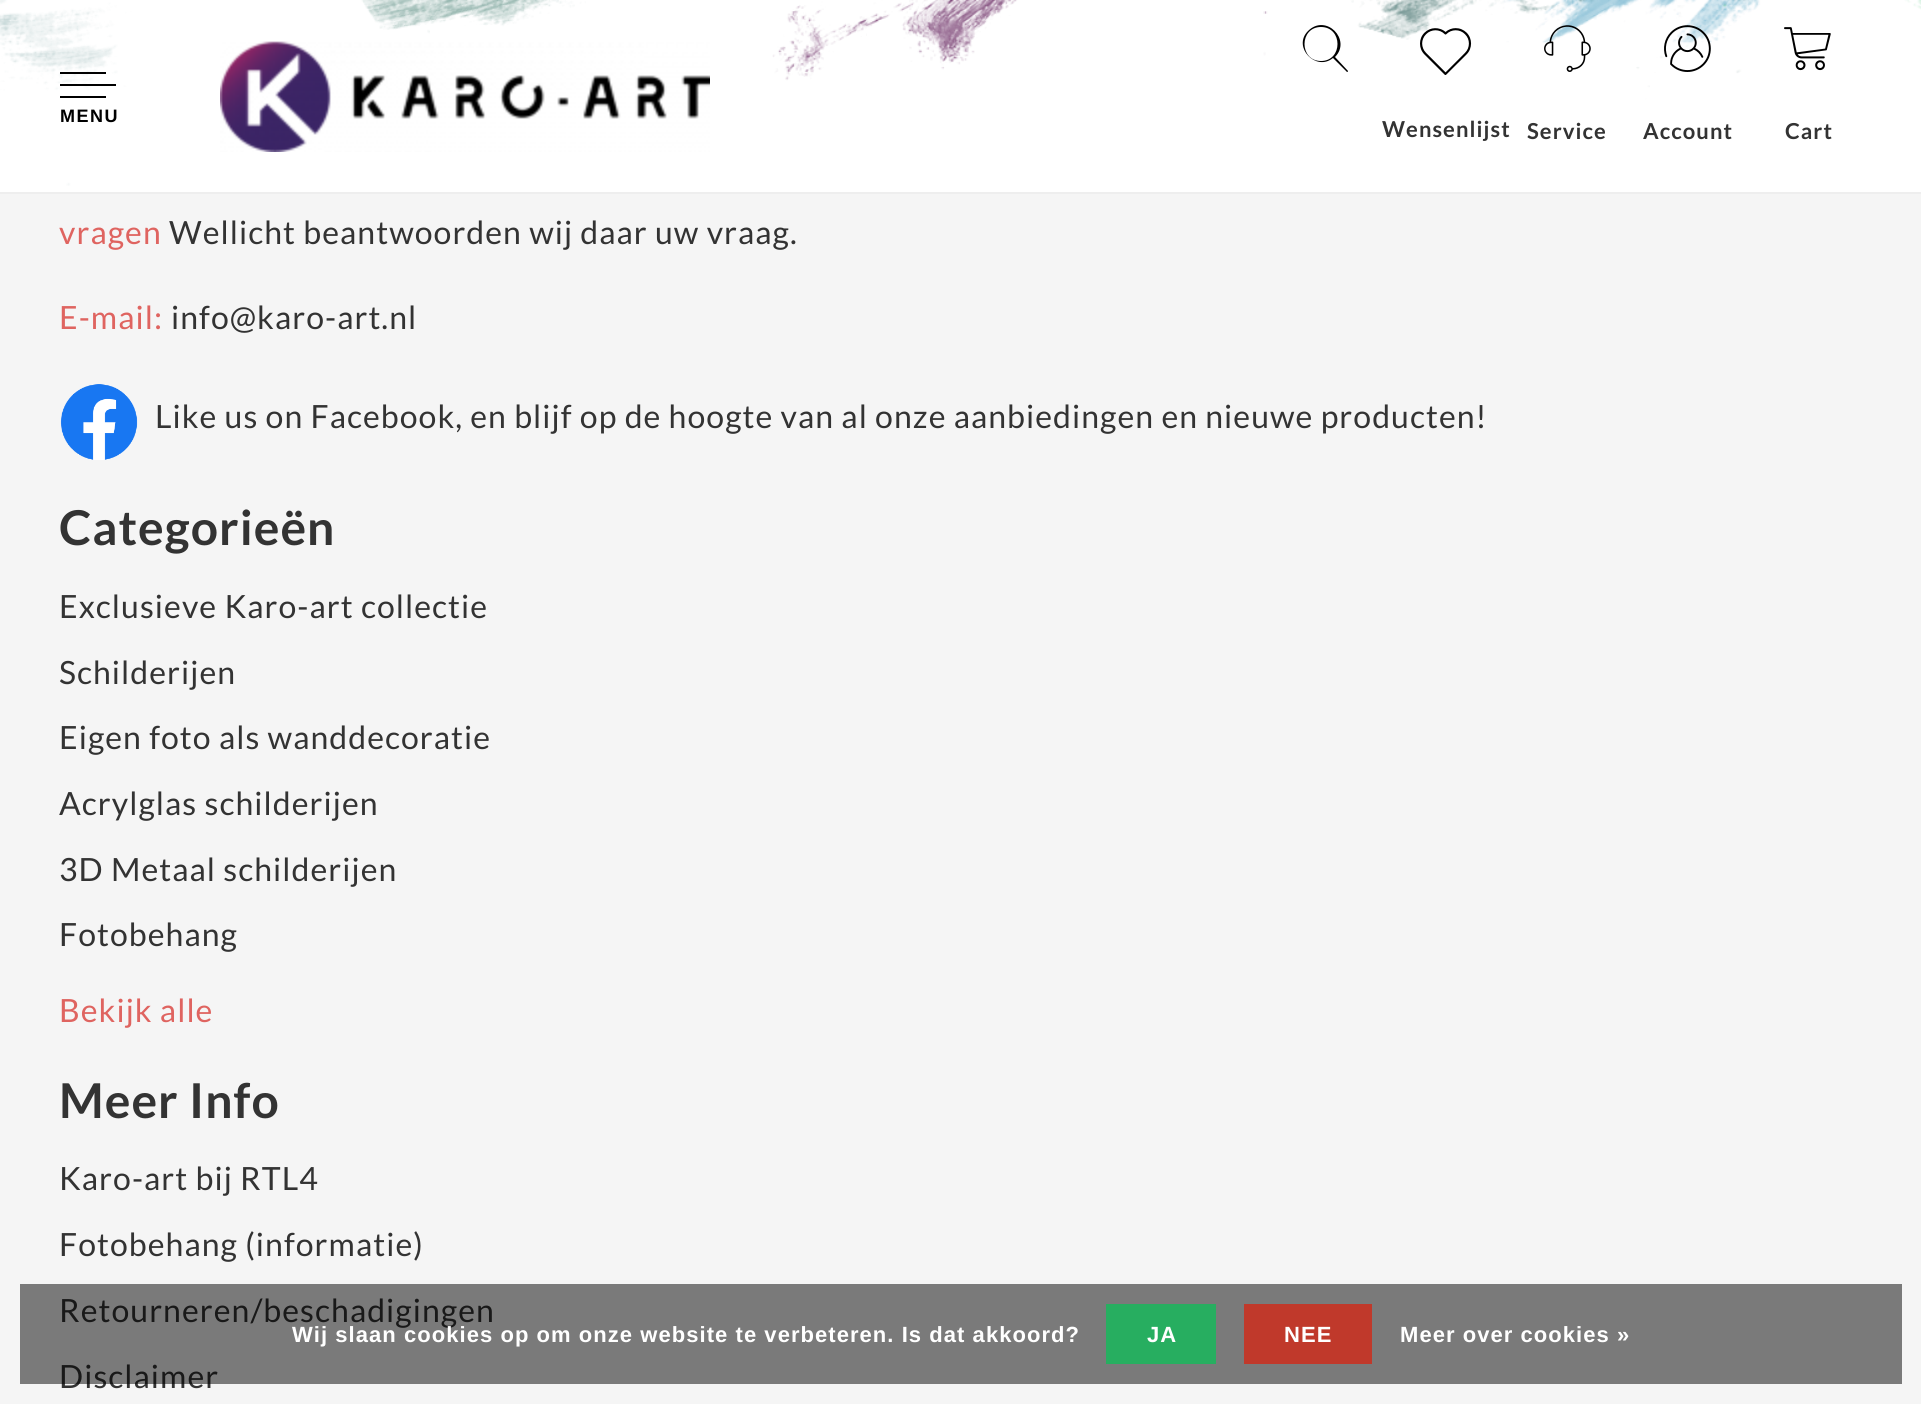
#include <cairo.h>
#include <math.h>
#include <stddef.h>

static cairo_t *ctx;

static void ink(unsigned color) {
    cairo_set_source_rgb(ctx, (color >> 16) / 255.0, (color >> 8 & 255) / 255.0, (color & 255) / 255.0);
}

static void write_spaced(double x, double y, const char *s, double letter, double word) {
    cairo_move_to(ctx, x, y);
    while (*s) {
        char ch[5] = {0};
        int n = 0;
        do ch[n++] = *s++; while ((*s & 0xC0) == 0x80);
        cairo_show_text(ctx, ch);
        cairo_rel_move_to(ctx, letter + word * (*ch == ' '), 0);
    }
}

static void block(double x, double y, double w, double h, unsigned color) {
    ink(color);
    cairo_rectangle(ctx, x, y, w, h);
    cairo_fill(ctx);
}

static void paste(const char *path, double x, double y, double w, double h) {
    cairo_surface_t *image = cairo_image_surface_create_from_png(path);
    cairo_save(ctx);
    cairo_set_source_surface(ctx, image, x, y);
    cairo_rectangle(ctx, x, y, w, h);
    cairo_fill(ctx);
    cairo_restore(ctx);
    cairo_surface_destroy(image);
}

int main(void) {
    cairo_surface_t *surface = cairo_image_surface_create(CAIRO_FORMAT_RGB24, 1921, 1404);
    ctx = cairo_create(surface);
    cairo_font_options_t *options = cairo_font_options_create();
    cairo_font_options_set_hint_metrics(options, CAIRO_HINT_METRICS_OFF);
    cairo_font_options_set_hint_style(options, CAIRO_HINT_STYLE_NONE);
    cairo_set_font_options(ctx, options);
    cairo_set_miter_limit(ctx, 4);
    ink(0xf5f5f5);
    cairo_paint(ctx);
    block(0, 0, 1921, 192, 0xffffff);
    paste("pic1.png", 0, 0, 1921, 186);
    block(0, 192, 1921, 2, 0xeeeeee);
    block(60, 72, 46, 2, 0x000000);
    block(60, 84, 56, 2, 0x000000);
    block(60, 96, 46, 2, 0x000000);
    cairo_select_font_face(ctx, "Liberation Sans", CAIRO_FONT_SLANT_NORMAL, CAIRO_FONT_WEIGHT_BOLD);
    cairo_set_font_size(ctx, 18);
    write_spaced(60, 122, "MENU", 1.5, 0);
    paste("pic2.png", 220, 41, 490, 111);
    cairo_new_path(ctx);
    cairo_move_to(ctx, 1348, 71);
    cairo_curve_to(ctx, 1348, 71, 1348, 72, 1347, 72);
    cairo_line_to(ctx, 1333, 58);
    cairo_curve_to(ctx, 1316, 72, 1292, 47, 1308, 31);
    cairo_curve_to(ctx, 1326, 13, 1352, 40, 1335, 57);
    cairo_close_path(ctx);
    cairo_move_to(ctx, 1321, 61);
    cairo_curve_to(ctx, 1343, 61, 1343, 27, 1321, 27);
    cairo_curve_to(ctx, 1299, 27, 1299, 61, 1321, 61);
    cairo_close_path(ctx);
    cairo_fill(ctx);
    paste("pic3.png", 1420, 28, 52, 47);
    cairo_select_font_face(ctx, "Lato", CAIRO_FONT_SLANT_NORMAL, CAIRO_FONT_WEIGHT_BOLD);
    cairo_set_font_size(ctx, 22);
    ink(0x333333);
    write_spaced(1382, 137, "Wensenlijst", 1.05, 0);
    paste("pic4.png", 1544, 25, 47, 47);
    write_spaced(1527, 139, "Service", 1.05, 0);
    paste("pic5.png", 1664, 25, 47, 47);
    write_spaced(1643, 139, "Account", 1.05, 0);
    paste("pic6.png", 1784, 27, 47, 44);
    write_spaced(1785, 139, "Cart", 1.05, 0);
    cairo_select_font_face(ctx, "Lato", CAIRO_FONT_SLANT_NORMAL, CAIRO_FONT_WEIGHT_NORMAL);
    cairo_set_font_size(ctx, 32);
    ink(0xdf6460);
    write_spaced(59, 244, "vragen", 1.05, 0);
    ink(0x333333);
    write_spaced(169, 244, "Wellicht beantwoorden wij daar uw vraag.", 1.05, 0);
    ink(0xdf6460);
    write_spaced(59, 329, "E-mail:", 1.05, 0);
    ink(0x333333);
    write_spaced(171, 329, "info@karo-art.nl", 1.05, 0);
    paste("pic7.png", 60, 384, 78, 76);
    write_spaced(155, 428, "Like us on Facebook, en blijf op de hoogte van al onze aanbiedingen en nieuwe producten!", 1.05, 0);
    cairo_select_font_face(ctx, "Lato", CAIRO_FONT_SLANT_NORMAL, CAIRO_FONT_WEIGHT_BOLD);
    cairo_set_font_size(ctx, 48);
    write_spaced(59, 545, "Categorieën", 1.05, 0);
    cairo_select_font_face(ctx, "Lato", CAIRO_FONT_SLANT_NORMAL, CAIRO_FONT_WEIGHT_NORMAL);
    cairo_set_font_size(ctx, 32);
    write_spaced(59, 618, "Exclusieve Karo-art collectie", 1.05, 0);
    write_spaced(59, 684, "Schilderijen", 1.05, 0);
    write_spaced(59, 749, "Eigen foto als wanddecoratie", 1.05, 0);
    write_spaced(59, 815, "Acrylglas schilderijen", 1.05, 0);
    write_spaced(59, 881, "3D Metaal schilderijen", 1.05, 0);
    write_spaced(59, 946, "Fotobehang", 1.05, 0);
    ink(0xdf6460);
    write_spaced(59, 1022, "Bekijk alle", 1.05, 0);
    cairo_select_font_face(ctx, "Lato", CAIRO_FONT_SLANT_NORMAL, CAIRO_FONT_WEIGHT_BOLD);
    cairo_set_font_size(ctx, 48);
    ink(0x333333);
    write_spaced(59, 1118, "Meer Info", 1.05, 0);
    cairo_select_font_face(ctx, "Lato", CAIRO_FONT_SLANT_NORMAL, CAIRO_FONT_WEIGHT_NORMAL);
    cairo_set_font_size(ctx, 32);
    write_spaced(59, 1190, "Karo-art bij RTL4", 1.05, 0);
    write_spaced(59, 1256, "Fotobehang (informatie)", 1.05, 0);
    write_spaced(59, 1322, "Retourneren/beschadigingen", 1.05, 0);
    write_spaced(59, 1388, "Disclaimer", 1.05, 0);
    cairo_set_source_rgba(ctx, 0, 0, 0, 0.5);
    cairo_rectangle(ctx, 20, 1284, 1882, 100);
    cairo_fill(ctx);
    cairo_select_font_face(ctx, "Liberation Sans", CAIRO_FONT_SLANT_NORMAL, CAIRO_FONT_WEIGHT_BOLD);
    cairo_set_font_size(ctx, 22);
    ink(0xffffff);
    write_spaced(292, 1342, "Wij slaan cookies op om onze website te verbeteren. Is dat akkoord?", 1.05, 0);
    block(1106, 1304, 110, 60, 0x27ae60);
    ink(0xffffff);
    write_spaced(1147, 1342, "JA", 1.05, 0);
    block(1244, 1304, 128, 60, 0xc0392b);
    ink(0xffffff);
    write_spaced(1284, 1342, "NEE", 1.05, 0);
    write_spaced(1400, 1342, "Meer over cookies »", 1.05, 0);
    cairo_surface_write_to_png(surface, "screenshot.png");
    cairo_font_options_destroy(options);
    cairo_destroy(ctx);
    cairo_surface_destroy(surface);
    return 0;
}
